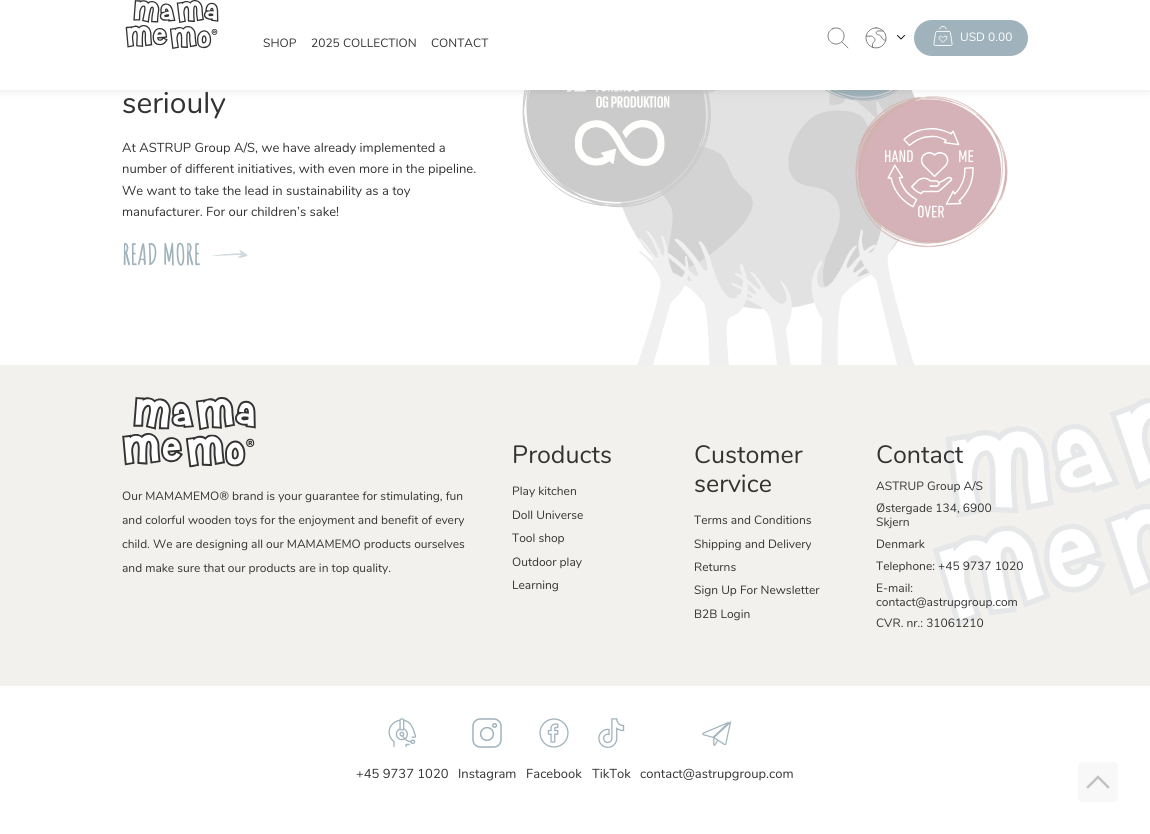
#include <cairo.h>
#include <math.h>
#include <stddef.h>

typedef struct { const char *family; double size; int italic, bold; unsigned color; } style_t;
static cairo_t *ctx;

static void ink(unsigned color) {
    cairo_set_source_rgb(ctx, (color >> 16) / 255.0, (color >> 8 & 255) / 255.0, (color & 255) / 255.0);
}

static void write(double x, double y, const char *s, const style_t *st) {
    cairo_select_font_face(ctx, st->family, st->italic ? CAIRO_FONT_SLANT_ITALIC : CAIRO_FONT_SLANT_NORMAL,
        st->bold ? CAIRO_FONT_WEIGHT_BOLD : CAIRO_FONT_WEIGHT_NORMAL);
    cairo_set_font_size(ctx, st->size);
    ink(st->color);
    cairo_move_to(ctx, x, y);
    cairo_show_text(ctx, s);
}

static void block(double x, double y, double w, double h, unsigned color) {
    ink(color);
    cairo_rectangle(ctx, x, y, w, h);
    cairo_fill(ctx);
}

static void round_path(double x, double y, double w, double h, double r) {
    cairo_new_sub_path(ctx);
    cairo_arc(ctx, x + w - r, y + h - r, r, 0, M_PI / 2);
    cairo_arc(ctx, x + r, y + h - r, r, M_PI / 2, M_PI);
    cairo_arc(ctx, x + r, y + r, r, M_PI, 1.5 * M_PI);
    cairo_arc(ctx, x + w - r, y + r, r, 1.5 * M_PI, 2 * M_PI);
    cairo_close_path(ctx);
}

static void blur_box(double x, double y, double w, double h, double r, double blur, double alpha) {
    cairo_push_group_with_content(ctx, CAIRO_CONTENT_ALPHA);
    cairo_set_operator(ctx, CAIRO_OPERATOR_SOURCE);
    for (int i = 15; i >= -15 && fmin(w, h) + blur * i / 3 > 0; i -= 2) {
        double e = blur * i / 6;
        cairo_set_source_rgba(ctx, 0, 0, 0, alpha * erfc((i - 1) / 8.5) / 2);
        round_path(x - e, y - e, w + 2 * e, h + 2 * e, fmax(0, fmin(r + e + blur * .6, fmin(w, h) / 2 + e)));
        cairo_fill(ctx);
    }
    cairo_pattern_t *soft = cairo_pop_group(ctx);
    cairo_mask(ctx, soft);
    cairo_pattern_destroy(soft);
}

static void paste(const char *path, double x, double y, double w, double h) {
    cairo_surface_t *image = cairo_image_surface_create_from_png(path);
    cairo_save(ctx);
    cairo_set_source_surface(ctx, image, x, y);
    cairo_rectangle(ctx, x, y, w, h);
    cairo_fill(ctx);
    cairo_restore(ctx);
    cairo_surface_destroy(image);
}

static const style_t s1 = {"Nunito", 12, 0, 0, 0xffffff};
static const style_t s2 = {"Nunito", 12, 0, 0, 0x333333};
static const style_t s3 = {"Nunito", 30, 0, 0, 0x333333};
static const style_t s4 = {"Nunito", 13, 0, 0, 0x333333};
static const style_t s5 = {"Amatic SC", 28, 0, 1, 0xa0b2bb};
static const style_t s6 = {"Nunito", 25, 0, 0, 0x333333};

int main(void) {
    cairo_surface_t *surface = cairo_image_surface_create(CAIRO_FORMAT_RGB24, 1150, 834);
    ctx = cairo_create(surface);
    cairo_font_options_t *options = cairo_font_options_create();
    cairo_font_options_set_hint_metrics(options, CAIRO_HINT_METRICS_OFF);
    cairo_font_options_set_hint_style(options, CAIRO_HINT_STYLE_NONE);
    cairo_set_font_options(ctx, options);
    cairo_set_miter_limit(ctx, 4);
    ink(0xffffff);
    cairo_paint(ctx);
    paste("pic6.png", 522, 90, 486, 275);
    ink(0x000000);
    blur_box(0, 0, 1150, 90, 0, 5, 0.1);
    block(0, 0, 1150, 90, 0xffffff);
    paste("pic1.png", 125, 0, 94, 49);
    paste("pic2.png", 827, 27, 22, 22);
    paste("pic3.png", 865, 27, 22, 22);
    cairo_new_path(ctx);
    cairo_move_to(ctx, 904.5, 35.5);
    cairo_line_to(ctx, 901, 39);
    cairo_line_to(ctx, 897.5, 35.5);
    ink(0x000000);
    cairo_set_line_width(ctx, 0.9);
    cairo_set_line_cap(ctx, CAIRO_LINE_CAP_SQUARE);
    cairo_stroke(ctx);
    ink(0xa0b2bb);
    round_path(914, 20, 114, 36, 18);
    cairo_fill(ctx);
    paste("pic4.png", 933, 25, 20, 21);
    write(960, 41, "USD 0.00", &s1);
    write(263, 47, "SHOP", &s2);
    write(311, 47, "2025 COLLECTION", &s2);
    write(431, 47, "CONTACT", &s2);
    write(122, 113, "seriouly", &s3);
    write(122, 152, "At ASTRUP Group A/S, we have already implemented a", &s4);
    write(122, 173, "number of different initiatives, with even more in the pipeline.", &s4);
    write(122, 195, "We want to take the lead in sustainability as a toy", &s4);
    write(122, 216, "manufacturer. For our children’s sake!", &s4);
    write(122, 265, "READ MORE", &s5);
    paste("pic5.png", 212, 249, 36, 9);
    block(0, 365, 1150, 321, 0xf3f1ed);
    paste("pic7.png", 122, 397, 134, 71);
    write(122, 500, "Our MAMAMEMO® brand is your guarantee for stimulating, fun", &s2);
    write(122, 524, "and colorful wooden toys for the enjoyment and benefit of every", &s2);
    write(122, 548, "child. We are designing all our MAMAMEMO products ourselves", &s2);
    write(122, 572, "and make sure that our products are in top quality.", &s2);
    write(512, 463, "Products", &s6);
    write(512, 495, "Play kitchen", &s2);
    write(512, 519, "Doll Universe", &s2);
    write(512, 542, "Tool shop", &s2);
    write(512, 566, "Outdoor play", &s2);
    write(512, 589, "Learning", &s2);
    write(694, 463, "Customer", &s6);
    write(694, 492, "service", &s6);
    write(694, 524, "Terms and Conditions", &s2);
    write(694, 548, "Shipping and Delivery", &s2);
    write(694, 571, "Returns", &s2);
    write(694, 594, "Sign Up For Newsletter", &s2);
    write(694, 618, "B2B Login", &s2);
    paste("pic8.png", 933, 398, 217, 229);
    write(876, 463, "Contact", &s6);
    write(876, 490, "ASTRUP Group A/S", &s2);
    write(876, 512, "Østergade 134, 6900", &s2);
    write(876, 526, "Skjern", &s2);
    write(876, 548, "Denmark", &s2);
    write(876, 570, "Telephone: +45 9737 1020", &s2);
    write(876, 592, "E-mail:", &s2);
    write(876, 606, "contact@astrupgroup.com", &s2);
    write(876, 627, "CVR. nr.: 31061210", &s2);
    ink(0xf8f8f8);
    round_path(1078, 762, 40, 40, 4);
    cairo_fill(ctx);
    cairo_new_path(ctx);
    cairo_move_to(ctx, 1088, 787);
    cairo_line_to(ctx, 1098, 777);
    cairo_line_to(ctx, 1108, 787);
    ink(0xc2c2c2);
    cairo_set_line_width(ctx, 2.5);
    cairo_stroke(ctx);
    paste("pic9.png", 388, 718, 29, 29);
    write(356, 778, "+45 9737 1020", &s4);
    paste("pic10.png", 472, 718, 30, 30);
    write(458, 778, "Instagram", &s4);
    paste("pic11.png", 539, 718, 30, 30);
    write(526, 778, "Facebook", &s4);
    paste("pic12.png", 598, 718, 27, 30);
    write(592, 778, "TikTok", &s4);
    paste("pic13.png", 702, 720, 30, 26);
    write(640, 778, "contact@astrupgroup.com", &s4);
    cairo_surface_write_to_png(surface, "screenshot.png");
    cairo_font_options_destroy(options);
    cairo_destroy(ctx);
    cairo_surface_destroy(surface);
    return 0;
}
